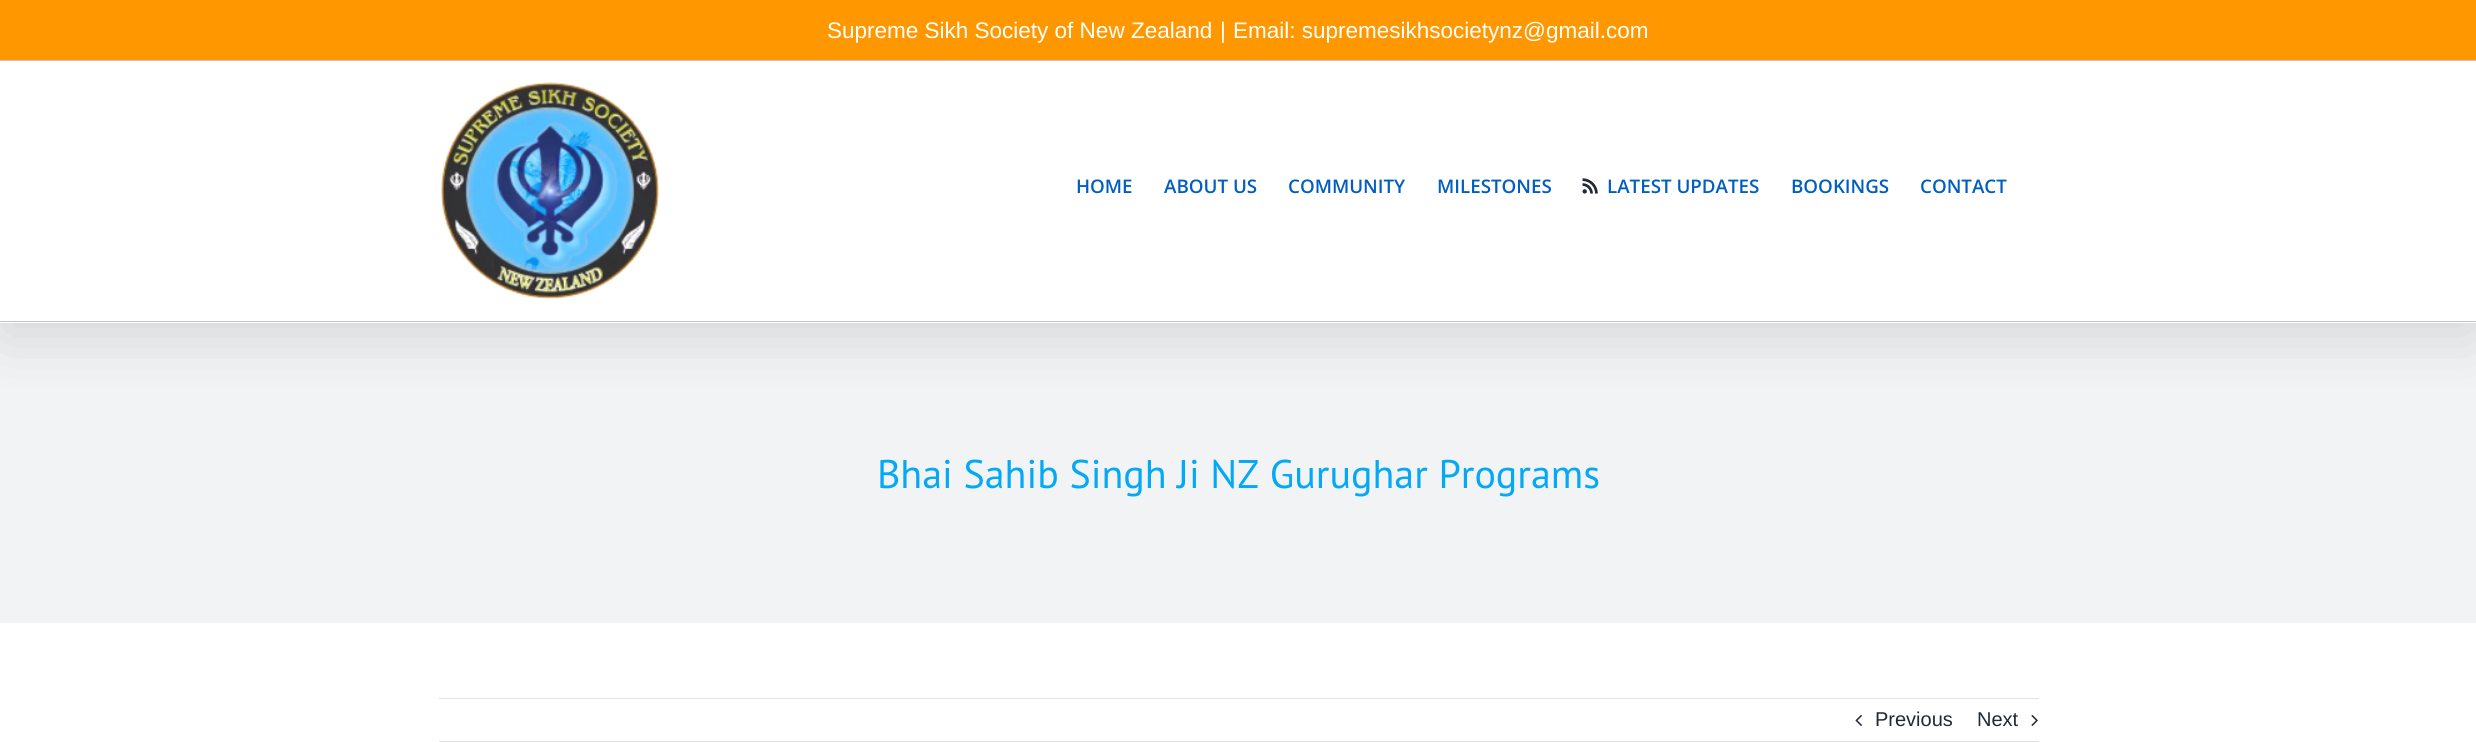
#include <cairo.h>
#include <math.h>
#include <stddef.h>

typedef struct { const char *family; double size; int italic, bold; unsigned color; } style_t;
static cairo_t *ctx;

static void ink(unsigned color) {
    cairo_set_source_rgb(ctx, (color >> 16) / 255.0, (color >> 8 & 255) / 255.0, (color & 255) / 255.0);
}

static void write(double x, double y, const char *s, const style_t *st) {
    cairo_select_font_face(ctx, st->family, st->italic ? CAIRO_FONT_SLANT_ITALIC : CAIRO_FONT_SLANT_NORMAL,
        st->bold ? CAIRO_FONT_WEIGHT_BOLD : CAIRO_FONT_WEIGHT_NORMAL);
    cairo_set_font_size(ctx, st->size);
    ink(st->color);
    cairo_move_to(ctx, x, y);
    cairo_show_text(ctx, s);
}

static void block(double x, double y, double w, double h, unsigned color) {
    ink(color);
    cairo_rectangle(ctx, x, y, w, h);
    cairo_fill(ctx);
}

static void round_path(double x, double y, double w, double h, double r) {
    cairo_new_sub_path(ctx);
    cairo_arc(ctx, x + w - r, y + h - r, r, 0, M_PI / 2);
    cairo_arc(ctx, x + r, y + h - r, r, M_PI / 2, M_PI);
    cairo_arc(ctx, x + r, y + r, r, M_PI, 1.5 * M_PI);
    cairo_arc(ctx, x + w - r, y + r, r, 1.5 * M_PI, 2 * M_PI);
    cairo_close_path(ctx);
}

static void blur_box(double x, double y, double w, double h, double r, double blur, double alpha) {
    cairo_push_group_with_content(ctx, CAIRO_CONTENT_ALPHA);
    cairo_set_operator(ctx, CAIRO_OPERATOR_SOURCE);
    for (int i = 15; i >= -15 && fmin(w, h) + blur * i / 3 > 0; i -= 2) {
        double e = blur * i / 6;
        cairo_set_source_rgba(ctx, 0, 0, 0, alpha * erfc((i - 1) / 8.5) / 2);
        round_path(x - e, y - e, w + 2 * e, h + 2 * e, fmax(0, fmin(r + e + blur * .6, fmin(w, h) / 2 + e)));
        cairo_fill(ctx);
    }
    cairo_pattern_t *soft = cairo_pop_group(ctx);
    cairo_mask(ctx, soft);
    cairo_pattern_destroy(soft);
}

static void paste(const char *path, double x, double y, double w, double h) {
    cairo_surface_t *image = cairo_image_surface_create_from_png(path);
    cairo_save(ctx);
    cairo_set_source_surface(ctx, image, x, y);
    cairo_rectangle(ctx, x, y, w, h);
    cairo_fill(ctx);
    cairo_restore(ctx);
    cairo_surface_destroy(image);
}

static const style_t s1 = {"Liberation Sans", 22.5, 0, 0, 0xffffff};
static const style_t s2 = {"Open Sans SemiBold", 18.75, 0, 0, 0x015ec1};
static const style_t s3 = {"PT Sans", 40, 0, 0, 0x03a9f4};
static const style_t s4 = {"Liberation Sans", 20, 0, 0, 0x212934};

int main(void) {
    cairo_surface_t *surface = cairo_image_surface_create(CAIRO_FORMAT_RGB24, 2476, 742);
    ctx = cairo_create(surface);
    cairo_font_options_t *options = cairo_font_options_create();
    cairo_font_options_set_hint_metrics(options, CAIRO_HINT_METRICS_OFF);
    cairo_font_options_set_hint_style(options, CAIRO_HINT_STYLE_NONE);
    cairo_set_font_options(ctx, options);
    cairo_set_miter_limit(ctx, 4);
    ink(0xffffff);
    cairo_paint(ctx);
    block(0, 323, 2476, 300, 0xf2f3f5);
    ink(0x000000);
    blur_box(3, 15, 2471, 318, 0, 31, 0.14);
    block(0, 0, 2476, 60, 0xff9800);
    block(0, 60, 2476, 1, 0xc4c4c4);
    write(827, 38, "Supreme Sikh Society of New Zealand", &s1);
    write(1220, 38, "|", &s1);
    write(1233, 38, "Email: supremesikhsocietynz@gmail.com", &s1);
    block(0, 61, 2476, 262, 0xffffff);
    block(0, 321, 2476, 1, 0xc4c4c4);
    paste("pic1.png", 441, 82, 218, 217);
    write(1076, 193, "HOME", &s2);
    write(1164, 193, "ABOUT US", &s2);
    write(1288, 193, "COMMUNITY", &s2);
    write(1437, 193, "MILESTONES", &s2);
    paste("pic2.png", 1582, 178, 16, 16);
    write(1607, 193, "LATEST UPDATES", &s2);
    write(1791, 193, "BOOKINGS", &s2);
    write(1920, 193, "CONTACT", &s2);
    write(877, 488, "Bhai Sahib Singh Ji NZ Gurughar Programs", &s3);
    block(439, 698, 1600, 1, 0xe2e2e2);
    block(439, 741, 1600, 1, 0xe2e2e2);
    paste("pic3.png", 1855, 715, 7, 11);
    write(1875, 726, "Previous", &s4);
    write(1977, 726, "Next", &s4);
    paste("pic4.png", 2031, 715, 7, 11);
    cairo_surface_write_to_png(surface, "screenshot.png");
    cairo_font_options_destroy(options);
    cairo_destroy(ctx);
    cairo_surface_destroy(surface);
    return 0;
}
